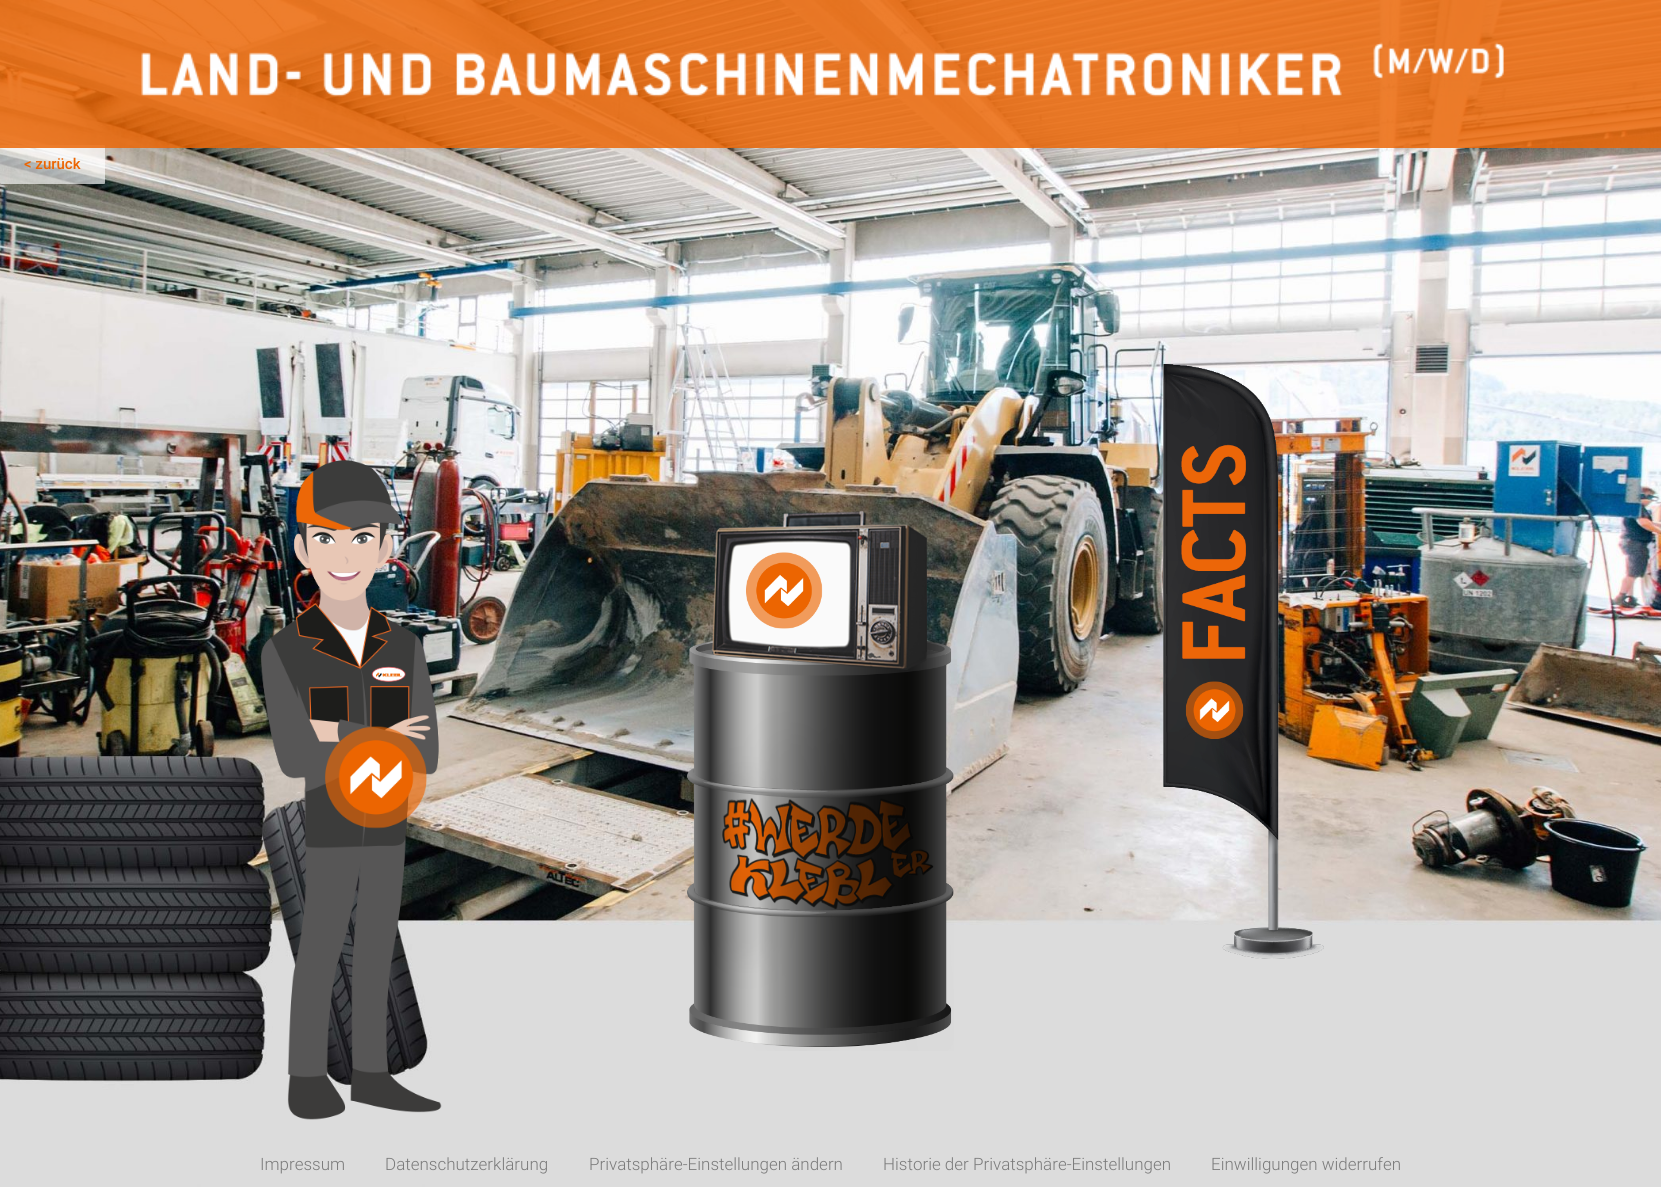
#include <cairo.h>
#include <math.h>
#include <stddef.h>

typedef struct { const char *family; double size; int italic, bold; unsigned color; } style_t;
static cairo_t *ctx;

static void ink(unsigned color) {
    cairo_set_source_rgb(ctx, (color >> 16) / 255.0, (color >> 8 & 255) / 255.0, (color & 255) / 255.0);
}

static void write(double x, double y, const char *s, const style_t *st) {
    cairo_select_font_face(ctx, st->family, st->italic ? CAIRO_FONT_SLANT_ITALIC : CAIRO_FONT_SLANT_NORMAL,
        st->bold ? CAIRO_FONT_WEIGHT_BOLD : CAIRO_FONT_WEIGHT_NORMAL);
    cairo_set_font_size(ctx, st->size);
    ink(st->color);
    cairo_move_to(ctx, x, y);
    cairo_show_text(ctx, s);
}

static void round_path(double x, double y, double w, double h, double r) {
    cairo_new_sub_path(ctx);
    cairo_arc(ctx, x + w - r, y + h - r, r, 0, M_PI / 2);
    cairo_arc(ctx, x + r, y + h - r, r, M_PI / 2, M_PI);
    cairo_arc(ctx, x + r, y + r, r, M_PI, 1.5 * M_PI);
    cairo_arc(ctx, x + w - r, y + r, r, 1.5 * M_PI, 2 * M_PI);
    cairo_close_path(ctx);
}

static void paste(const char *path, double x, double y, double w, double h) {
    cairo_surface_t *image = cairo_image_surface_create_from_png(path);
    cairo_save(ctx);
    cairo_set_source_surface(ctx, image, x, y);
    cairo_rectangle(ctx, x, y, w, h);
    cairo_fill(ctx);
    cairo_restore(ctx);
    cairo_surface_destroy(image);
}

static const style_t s1 = {"Roboto Medium", 15, 0, 0, 0xec6501};
static const style_t s2 = {"Roboto Light", 17, 0, 0, 0x7a7a7a};

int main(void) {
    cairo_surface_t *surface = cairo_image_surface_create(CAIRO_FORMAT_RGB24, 1661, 1187);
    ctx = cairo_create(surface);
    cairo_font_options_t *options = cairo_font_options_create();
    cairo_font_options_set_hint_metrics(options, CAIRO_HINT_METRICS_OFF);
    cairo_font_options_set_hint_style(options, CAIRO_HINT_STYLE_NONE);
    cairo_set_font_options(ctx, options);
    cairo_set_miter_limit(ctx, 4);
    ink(0xffffff);
    cairo_paint(ctx);
    paste("pic1.png", 0, 0, 1661, 1187);
    cairo_set_source_rgba(ctx, 1, 1, 1, 0.65);
    round_path(0, 145, 105, 39, 1);
    cairo_fill(ctx);
    cairo_set_source_rgba(ctx, 0.925, 0.4, 0.027, 0.84);
    cairo_rectangle(ctx, 0, 0, 1661, 148);
    cairo_fill(ctx);
    paste("pic2.png", 141, 42, 1363, 55);
    paste("pic3.png", 261, 460, 181, 660);
    paste("pic4.png", 687, 511, 267, 540);
    paste("pic5.png", 1163, 364, 161, 595);
    write(24, 169, "< zurück", &s1);
    write(260, 1170, "Impressum", &s2);
    write(385, 1170, "Datenschutzerklärung", &s2);
    write(589, 1170, "Privatsphäre-Einstellungen ändern", &s2);
    write(883, 1170, "Historie der Privatsphäre-Einstellungen", &s2);
    write(1211, 1170, "Einwilligungen widerrufen", &s2);
    cairo_surface_write_to_png(surface, "screenshot.png");
    cairo_font_options_destroy(options);
    cairo_destroy(ctx);
    cairo_surface_destroy(surface);
    return 0;
}
